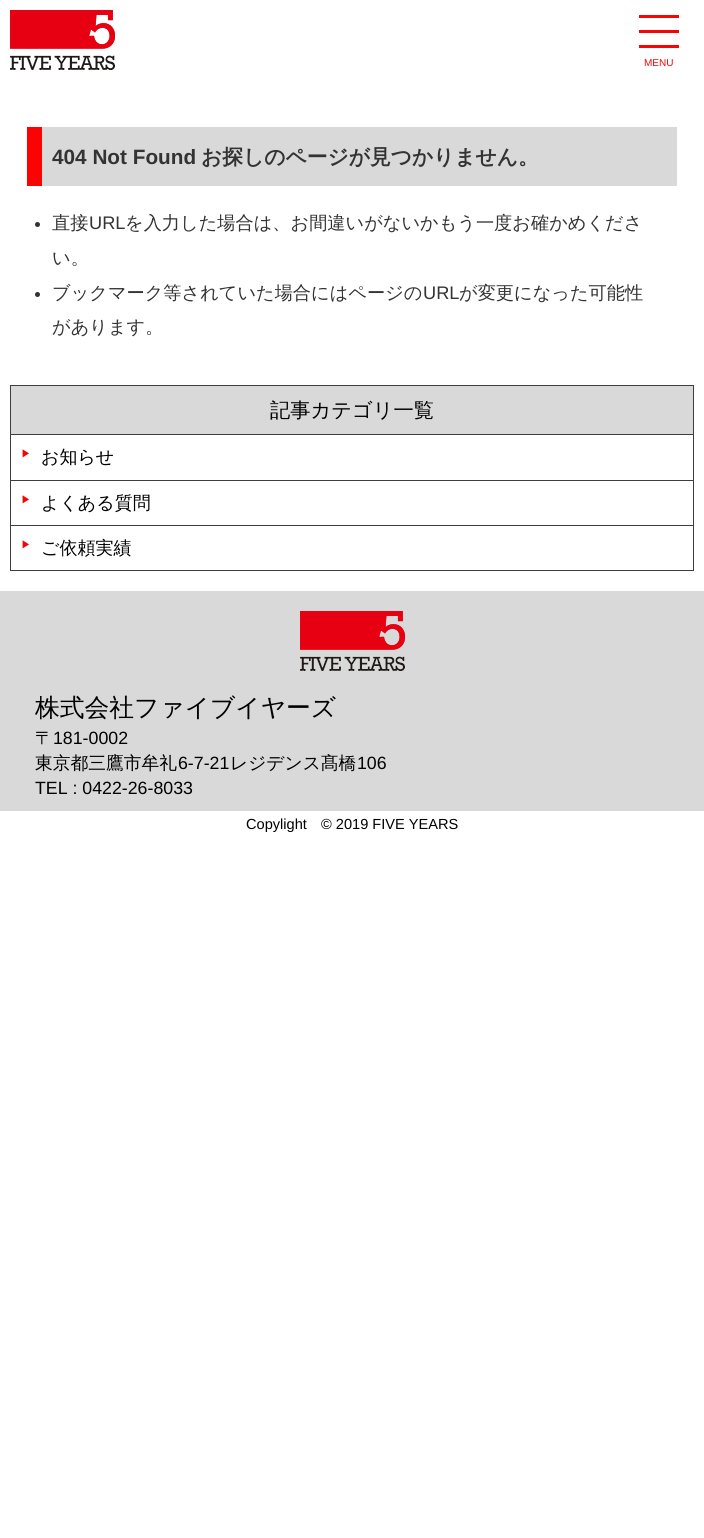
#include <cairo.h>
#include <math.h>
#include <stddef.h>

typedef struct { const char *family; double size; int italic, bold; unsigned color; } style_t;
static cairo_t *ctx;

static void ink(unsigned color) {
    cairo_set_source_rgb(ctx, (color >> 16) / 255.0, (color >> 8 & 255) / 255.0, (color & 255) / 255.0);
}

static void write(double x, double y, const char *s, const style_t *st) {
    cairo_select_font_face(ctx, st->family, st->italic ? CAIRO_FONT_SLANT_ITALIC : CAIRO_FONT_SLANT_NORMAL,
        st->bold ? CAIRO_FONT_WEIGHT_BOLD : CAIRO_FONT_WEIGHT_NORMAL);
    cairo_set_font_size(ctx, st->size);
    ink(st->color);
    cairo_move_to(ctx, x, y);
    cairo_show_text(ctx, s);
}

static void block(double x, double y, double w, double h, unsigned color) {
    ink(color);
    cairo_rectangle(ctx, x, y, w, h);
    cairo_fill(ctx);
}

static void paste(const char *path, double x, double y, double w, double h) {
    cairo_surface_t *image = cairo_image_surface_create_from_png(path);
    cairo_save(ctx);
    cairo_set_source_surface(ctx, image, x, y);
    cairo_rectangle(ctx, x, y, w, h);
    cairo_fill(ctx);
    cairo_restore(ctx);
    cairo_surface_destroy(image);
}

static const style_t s1 = {"Liberation Sans", 10, 0, 0, 0xfa0303};
static const style_t s2 = {"Liberation Sans", 20.75, 0, 1, 0x333333};
static const style_t s3 = {"WenQuanYi Zen Hei", 20.75, 0, 1, 0x333333};
static const style_t s4 = {"WenQuanYi Zen Hei Medium", 18.2, 0, 0, 0x333333};
static const style_t s5 = {"Liberation Sans", 18.2, 0, 0, 0x333333};
static const style_t s6 = {"WenQuanYi Zen Hei Medium", 20.25, 0, 0, 0x000000};
static const style_t s7 = {"WenQuanYi Zen Hei Medium", 10, 0, 0, 0xfa0303};
static const style_t s8 = {"WenQuanYi Zen Hei Medium", 18, 0, 0, 0x000000};
static const style_t s9 = {"WenQuanYi Zen Hei Medium", 24.75, 0, 0, 0x000000};
static const style_t s10 = {"WenQuanYi Zen Hei Medium", 17.75, 0, 0, 0x000000};
static const style_t s11 = {"Liberation Sans", 17.75, 0, 0, 0x000000};
static const style_t s12 = {"Liberation Sans", 14.6, 0, 0, 0x000000};

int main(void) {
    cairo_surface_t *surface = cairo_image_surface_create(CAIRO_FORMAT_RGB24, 704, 1538);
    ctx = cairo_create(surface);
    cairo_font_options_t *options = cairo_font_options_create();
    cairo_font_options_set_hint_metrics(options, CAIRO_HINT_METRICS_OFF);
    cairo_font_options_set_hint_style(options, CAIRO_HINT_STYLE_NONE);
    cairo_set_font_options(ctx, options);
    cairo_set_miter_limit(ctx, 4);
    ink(0xffffff);
    cairo_paint(ctx);
    paste("pic1.png", 10, 10, 105, 60);
    block(639, 15, 40, 3, 0xfa0303);
    block(639, 30, 40, 3, 0xfa0303);
    block(639, 45, 40, 3, 0xfa0303);
    write(644, 66, "MENU", &s1);
    block(42, 127, 635, 59, 0xd9d9da);
    block(27, 127, 15, 59, 0xfa0303);
    write(52, 164, "404 Not Found", &s2);
    write(201, 164, "お探しのページが見つかりません。", &s3);
    cairo_new_path(ctx);
    cairo_arc(ctx, 37.5, 224.5, 2.5, 0, 2 * M_PI);
    cairo_fill(ctx);
    write(52, 229, "直接", &s4);
    write(89, 229, "URL", &s5);
    write(125, 229, "を入力した場合は、お間違いがないかもう一度お確かめくださ", &s4);
    write(52, 264, "い。", &s4);
    cairo_new_path(ctx);
    cairo_arc(ctx, 37.5, 294.5, 2.5, 0, 2 * M_PI);
    cairo_fill(ctx);
    write(52, 299, "ブックマーク等されていた場合にはページの", &s4);
    write(423, 299, "URL", &s5);
    write(459, 299, "が変更になった可能性", &s4);
    write(52, 333, "があります。", &s4);
    cairo_rectangle(ctx, 10.5, 385.5, 683, 49);
    ink(0x3f3e3e);
    cairo_set_line_width(ctx, 1);
    cairo_stroke(ctx);
    block(11, 386, 682, 48, 0xd9d9da);
    write(270, 417, "記事カテゴリ一覧", &s6);
    block(693, 435, 1, 136, 0x3f3e3e);
    block(10, 480, 684, 1, 0x3f3e3e);
    block(10, 435, 1, 46, 0x3f3e3e);
    write(21, 457, "▶", &s7);
    write(41, 463, "お知らせ", &s8);
    block(10, 525, 684, 1, 0x3f3e3e);
    block(10, 481, 1, 45, 0x3f3e3e);
    write(21, 503, "▶", &s7);
    write(41, 509, "よくある質問", &s8);
    block(10, 570, 684, 1, 0x3f3e3e);
    block(10, 526, 1, 45, 0x3f3e3e);
    write(21, 548, "▶", &s7);
    write(41, 554, "ご依頼実績", &s8);
    block(0, 591, 704, 220, 0xd9d9da);
    paste("pic2.png", 300, 611, 105, 60);
    write(35, 716, "株式会社ファイブイヤーズ", &s9);
    write(35, 744, "〒", &s10);
    write(53, 744, "181-0002", &s11);
    write(35, 769, "東京都三鷹市牟礼", &s10);
    write(178, 769, "6-7-21", &s11);
    write(230, 769, "レジデンス髙橋", &s10);
    write(357, 769, "106", &s11);
    write(35, 794, "TEL : 0422-26-8033", &s11);
    write(246, 829, "Copylight", &s12);
    write(321, 829, "© 2019 FIVE YEARS", &s12);
    cairo_surface_write_to_png(surface, "screenshot.png");
    cairo_font_options_destroy(options);
    cairo_destroy(ctx);
    cairo_surface_destroy(surface);
    return 0;
}
